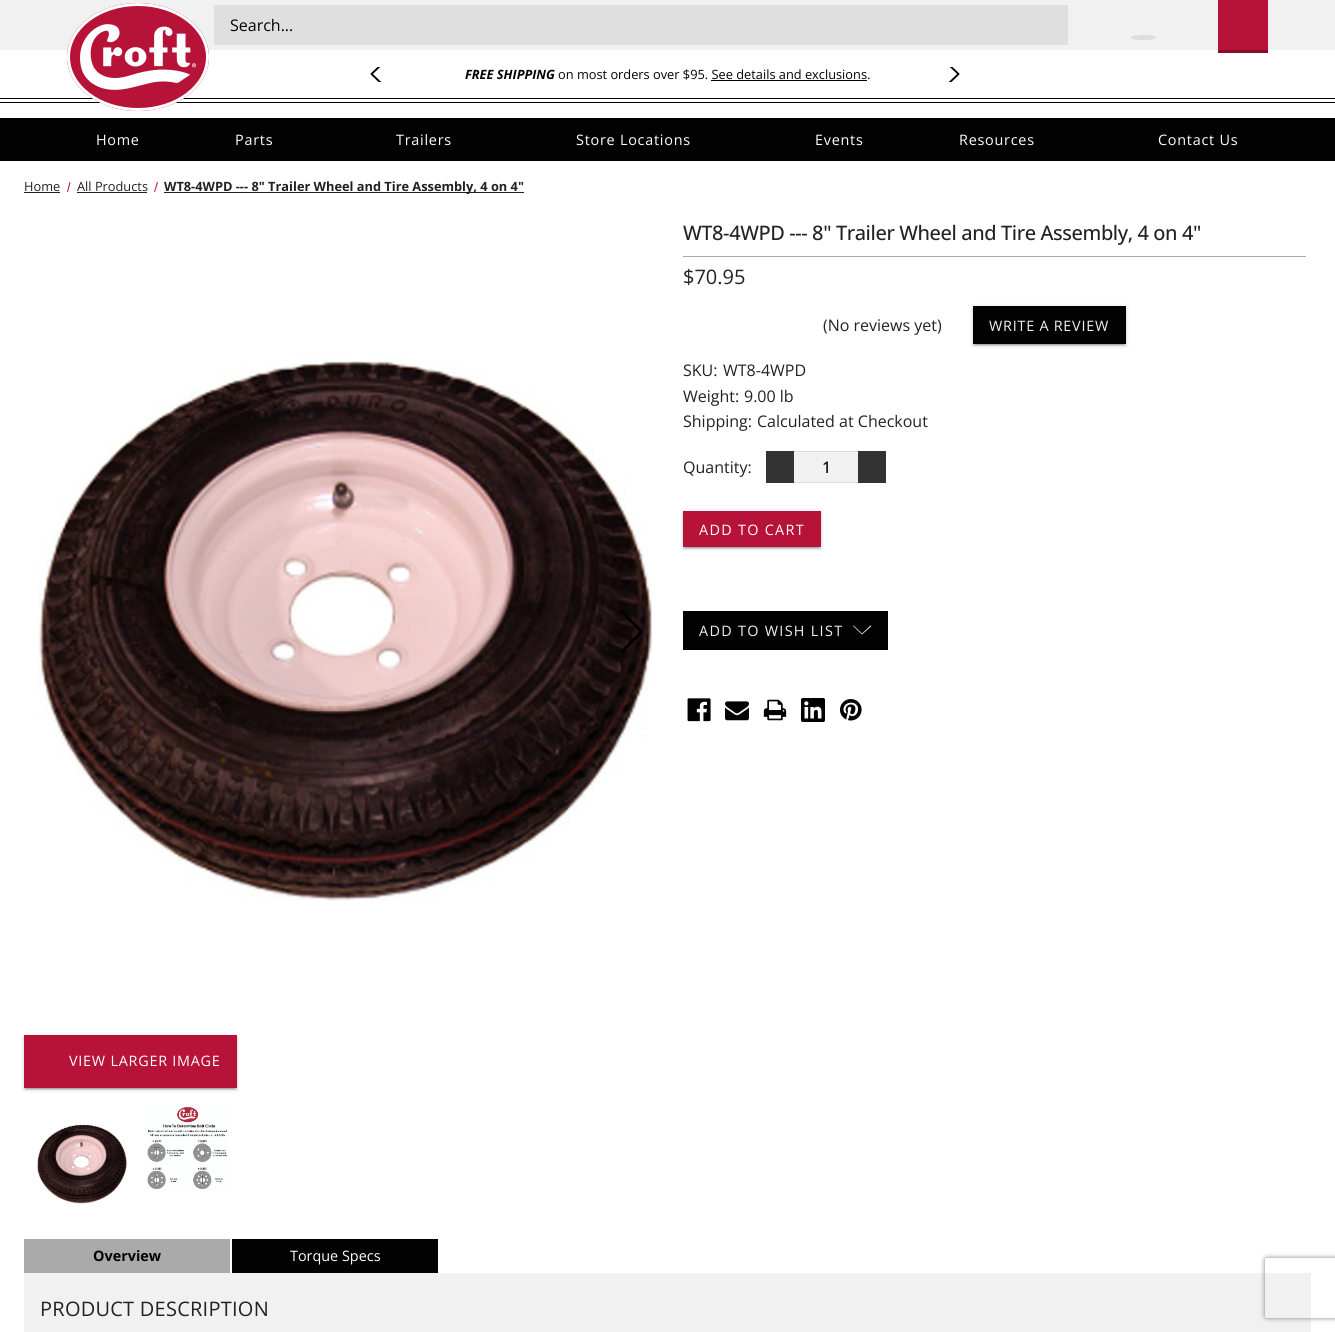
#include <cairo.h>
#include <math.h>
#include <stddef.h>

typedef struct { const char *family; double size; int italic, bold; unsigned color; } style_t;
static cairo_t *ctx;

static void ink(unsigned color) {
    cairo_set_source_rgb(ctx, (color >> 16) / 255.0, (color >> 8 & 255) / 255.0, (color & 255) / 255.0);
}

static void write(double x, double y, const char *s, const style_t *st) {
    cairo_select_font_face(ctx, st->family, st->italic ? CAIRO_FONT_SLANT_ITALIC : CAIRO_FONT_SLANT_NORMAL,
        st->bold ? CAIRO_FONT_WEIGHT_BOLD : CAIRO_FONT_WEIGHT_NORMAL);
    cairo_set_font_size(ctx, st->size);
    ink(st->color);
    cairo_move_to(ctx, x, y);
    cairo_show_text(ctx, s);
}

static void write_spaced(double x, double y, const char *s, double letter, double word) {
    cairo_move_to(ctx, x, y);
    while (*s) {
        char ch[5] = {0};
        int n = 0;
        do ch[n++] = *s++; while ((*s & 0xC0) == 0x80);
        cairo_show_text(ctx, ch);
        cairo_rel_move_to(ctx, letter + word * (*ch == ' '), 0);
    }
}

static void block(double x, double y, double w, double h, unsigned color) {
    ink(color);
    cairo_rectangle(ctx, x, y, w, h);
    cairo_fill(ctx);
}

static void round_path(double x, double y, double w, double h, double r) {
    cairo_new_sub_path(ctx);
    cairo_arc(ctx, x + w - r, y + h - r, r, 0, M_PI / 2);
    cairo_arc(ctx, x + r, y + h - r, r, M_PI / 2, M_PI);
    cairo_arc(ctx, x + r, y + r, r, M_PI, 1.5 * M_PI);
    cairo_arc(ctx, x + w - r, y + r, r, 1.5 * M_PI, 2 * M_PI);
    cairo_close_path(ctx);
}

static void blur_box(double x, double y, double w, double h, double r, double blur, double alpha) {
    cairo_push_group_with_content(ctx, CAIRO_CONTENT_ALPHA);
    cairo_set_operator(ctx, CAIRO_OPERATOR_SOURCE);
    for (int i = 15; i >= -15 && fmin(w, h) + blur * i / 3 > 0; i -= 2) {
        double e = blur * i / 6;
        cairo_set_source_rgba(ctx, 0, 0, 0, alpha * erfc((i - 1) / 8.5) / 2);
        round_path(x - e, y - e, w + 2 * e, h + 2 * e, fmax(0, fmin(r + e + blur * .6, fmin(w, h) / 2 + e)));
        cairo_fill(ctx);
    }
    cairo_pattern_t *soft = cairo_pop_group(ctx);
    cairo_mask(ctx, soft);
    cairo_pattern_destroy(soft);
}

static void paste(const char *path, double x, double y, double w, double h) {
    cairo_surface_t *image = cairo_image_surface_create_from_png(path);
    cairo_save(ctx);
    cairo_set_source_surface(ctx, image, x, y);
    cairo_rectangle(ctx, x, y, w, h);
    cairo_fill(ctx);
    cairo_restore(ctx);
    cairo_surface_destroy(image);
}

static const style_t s1 = {"Open Sans", 16, 0, 0, 0x020202};
static const style_t s2 = {"Open Sans", 12.8, 1, 1, 0x020202};
static const style_t s3 = {"Open Sans", 12.8, 0, 0, 0x020202};
static const style_t s4 = {"Open Sans", 12.8, 0, 0, 0x222222};
static const style_t s5 = {"Open Sans", 12.8, 0, 1, 0x222222};
static const style_t s6 = {"Open Sans", 20, 0, 0, 0x222222};
static const style_t s7 = {"Open Sans", 16, 0, 0, 0x222222};
static const style_t s8 = {"Open Sans Medium", 16, 0, 0, 0x020202};
static const style_t s9 = {"Open Sans", 14.4, 0, 1, 0x020202};
static const style_t s10 = {"Open Sans", 14.4, 0, 0, 0xffffff};

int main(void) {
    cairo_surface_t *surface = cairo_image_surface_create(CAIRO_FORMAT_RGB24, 1335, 1332);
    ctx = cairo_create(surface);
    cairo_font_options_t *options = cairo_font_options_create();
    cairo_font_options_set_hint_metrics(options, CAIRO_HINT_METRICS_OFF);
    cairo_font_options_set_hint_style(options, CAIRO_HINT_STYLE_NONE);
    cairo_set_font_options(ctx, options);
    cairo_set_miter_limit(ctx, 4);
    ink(0xffffff);
    cairo_paint(ctx);
    block(0, 0, 1335, 50, 0xf1f1f1);
    block(0, 98, 1335, 1, 0x020202);
    block(0, 102, 1335, 1, 0x020202);
    ink(0xb71237);
    cairo_new_path(ctx);
    cairo_move_to(ctx, 138, 3);
    cairo_curve_to(ctx, 177, 3, 209, 27, 209, 57);
    cairo_curve_to(ctx, 209, 87, 177, 111, 138, 111);
    cairo_curve_to(ctx, 99, 111, 67, 87, 67, 57);
    cairo_curve_to(ctx, 67, 27, 99, 3, 138, 3);
    cairo_close_path(ctx);
    cairo_fill(ctx);
    cairo_new_path(ctx);
    cairo_move_to(ctx, 138, 4.5);
    cairo_curve_to(ctx, 176.5, 4.5, 207.5, 28, 207.5, 57);
    cairo_curve_to(ctx, 207.5, 86, 176.5, 109.5, 138, 109.5);
    cairo_curve_to(ctx, 99.5, 109.5, 68.5, 86, 68.5, 57);
    cairo_curve_to(ctx, 68.5, 28, 99.5, 4.5, 138, 4.5);
    cairo_close_path(ctx);
    ink(0xffffff);
    cairo_set_line_width(ctx, 3);
    cairo_stroke(ctx);
    paste("pic1.png", 80, 24, 116, 66);
    block(214, 5, 854, 40, 0xdfdfdf);
    write(230, 31, "Search...", &s1);
    block(1218, 0, 50, 50, 0xb71237);
    block(1218, 50, 50, 3, 0x850d28);
    ink(0xdddddd);
    cairo_new_path(ctx);
    cairo_move_to(ctx, 1143.5, 35);
    cairo_curve_to(ctx, 1150.5, 35, 1156, 36, 1156, 37.5);
    cairo_curve_to(ctx, 1156, 39, 1150.5, 40, 1143.5, 40);
    cairo_curve_to(ctx, 1136.5, 40, 1131, 39, 1131, 37.5);
    cairo_curve_to(ctx, 1131, 36, 1136.5, 35, 1143.5, 35);
    cairo_close_path(ctx);
    cairo_fill(ctx);
    cairo_new_path(ctx);
    cairo_move_to(ctx, 1143.5, 35.5);
    cairo_curve_to(ctx, 1150, 35.5, 1155.5, 36.5, 1155.5, 37.5);
    cairo_curve_to(ctx, 1155.5, 38.5, 1150, 39.5, 1143.5, 39.5);
    cairo_curve_to(ctx, 1137, 39.5, 1131.5, 38.5, 1131.5, 37.5);
    cairo_curve_to(ctx, 1131.5, 36.5, 1137, 35.5, 1143.5, 35.5);
    cairo_close_path(ctx);
    cairo_set_line_width(ctx, 1);
    cairo_stroke(ctx);
    cairo_save(ctx);
    cairo_rectangle(ctx, 370, 67, 23, 15);
    cairo_clip(ctx);
    cairo_new_path(ctx);
    cairo_move_to(ctx, 391.5, 55);
    cairo_line_to(ctx, 371.5, 74);
    cairo_line_to(ctx, 391.5, 93);
    ink(0x020202);
    cairo_set_line_width(ctx, 1.9);
    cairo_set_line_cap(ctx, CAIRO_LINE_CAP_ROUND);
    cairo_set_line_join(ctx, CAIRO_LINE_JOIN_ROUND);
    cairo_stroke(ctx);
    cairo_restore(ctx);
    write(465, 79, "FREE SHIPPING", &s2);
    write(558, 79, "on most orders over $95. See details and exclusions.", &s3);
    block(711, 80, 156, 1, 0x020202);
    cairo_save(ctx);
    cairo_rectangle(ctx, 937, 67, 23, 15);
    cairo_clip(ctx);
    cairo_new_path(ctx);
    cairo_move_to(ctx, 938.5, 55);
    cairo_line_to(ctx, 958.5, 74);
    cairo_line_to(ctx, 938.5, 93);
    cairo_set_line_width(ctx, 1.9);
    cairo_set_line_cap(ctx, CAIRO_LINE_CAP_ROUND);
    cairo_set_line_join(ctx, CAIRO_LINE_JOIN_ROUND);
    cairo_stroke(ctx);
    cairo_restore(ctx);
    block(0, 118, 1335, 43, 0x020202);
    cairo_set_font_size(ctx, 14.4);
    ink(0xffffff);
    write_spaced(96, 145, "Home", 0.75, 0);
    write_spaced(235, 145, "Parts", 0.75, 0);
    write_spaced(396, 145, "Trailers", 0.75, 0);
    write_spaced(576, 145, "Store Locations", 0.75, 0);
    write_spaced(815, 145, "Events", 0.75, 0);
    write_spaced(959, 145, "Resources", 0.75, 0);
    write_spaced(1158, 145, "Contact Us", 0.75, 0);
    write(24, 191, "Home", &s4);
    block(24, 192, 36, 1, 0x222222);
    ink(0xb71237);
    cairo_new_path(ctx);
    cairo_move_to(ctx, 69.5, 182);
    cairo_line_to(ctx, 70.5, 182.5);
    cairo_line_to(ctx, 68, 192);
    cairo_line_to(ctx, 67, 192);
    cairo_close_path(ctx);
    cairo_fill(ctx);
    write(77, 191, "All Products", &s4);
    block(77, 192, 70, 1, 0x222222);
    ink(0xb71237);
    cairo_new_path(ctx);
    cairo_move_to(ctx, 157, 182);
    cairo_line_to(ctx, 158, 182.5);
    cairo_line_to(ctx, 155, 192);
    cairo_line_to(ctx, 154, 192);
    cairo_close_path(ctx);
    cairo_fill(ctx);
    block(164, 192, 360, 1, 0x222222);
    write(164, 191, "WT8-4WPD --- 8\" Trailer Wheel and Tire Assembly, 4 on 4\"", &s5);
    block(683, 256, 623, 1, 0xaaaaaa);
    cairo_select_font_face(ctx, "Open Sans Medium", CAIRO_FONT_SLANT_NORMAL, CAIRO_FONT_WEIGHT_NORMAL);
    cairo_set_font_size(ctx, 20);
    ink(0x222222);
    write_spaced(683, 240, "WT8-4WPD --- 8\" Trailer Wheel and Tire Assembly, 4 on 4\"", -0.4, 0);
    write(683, 284, "$70.95", &s6);
    write(823, 331, "(No reviews yet)", &s7);
    ink(0x000000);
    blur_box(973, 307, 153, 38, 0, 2.5, 0.12);
    blur_box(975, 311, 149, 34, 0, 0.5, 0.2);
    blur_box(973, 308, 153, 38, 0, 1, 0.14);
    block(973, 306, 153, 38, 0x020202);
    cairo_set_font_size(ctx, 14.4);
    ink(0xf1f1f1);
    write_spaced(989, 331, "WRITE A REVIEW", 0.75, 0);
    write(683, 376, "SKU:", &s7);
    write(723, 376, "WT8-4WPD", &s7);
    write(683, 402, "Weight:", &s7);
    write(744, 402, "9.00 lb", &s7);
    write(683, 427, "Shipping:", &s7);
    write(757, 427, "Calculated at Checkout", &s7);
    write(683, 473, "Quantity:", &s7);
    block(766, 451, 28, 32, 0x333333);
    block(794, 452, 64, 30, 0xf1f1f1);
    block(794, 451, 64, 1, 0xdddddd);
    block(794, 482, 64, 1, 0xdddddd);
    write(822, 473, "1", &s8);
    block(858, 451, 28, 32, 0x333333);
    ink(0x000000);
    blur_box(683, 512, 138, 36, 0, 2.5, 0.12);
    blur_box(685, 516, 134, 32, 0, 0.5, 0.2);
    blur_box(683, 513, 138, 36, 0, 1, 0.14);
    block(683, 511, 138, 36, 0xb71237);
    cairo_select_font_face(ctx, "Open Sans", CAIRO_FONT_SLANT_NORMAL, CAIRO_FONT_WEIGHT_NORMAL);
    cairo_set_font_size(ctx, 14.4);
    ink(0xffffff);
    write_spaced(699, 535, "ADD TO CART", 1.3, 0);
    block(683, 611, 205, 39, 0x020202);
    ink(0xf1f1f1);
    write_spaced(699, 636, "ADD TO WISH LIST", 1.3, 0);
    cairo_set_fill_rule(ctx, CAIRO_FILL_RULE_EVEN_ODD);
    cairo_new_path(ctx);
    cairo_move_to(ctx, 862, 633.5);
    cairo_line_to(ctx, 870.5, 625.5);
    cairo_line_to(ctx, 871.5, 626);
    cairo_line_to(ctx, 862, 634.5);
    cairo_line_to(ctx, 853, 626);
    cairo_line_to(ctx, 853.5, 625.5);
    cairo_close_path(ctx);
    cairo_fill(ctx);
    paste("pic2.png", 687, 698, 24, 24);
    paste("pic3.png", 725, 701, 24, 20);
    paste("pic4.png", 763, 699, 24, 22);
    paste("pic5.png", 801, 698, 24, 24);
    paste("pic6.png", 840, 699, 22, 22);
    paste("pic7.png", 37, 358, 616, 543);
    paste("pic8.png", 49, 609, 23, 44);
    paste("pic9.png", 620, 609, 23, 44);
    ink(0x000000);
    blur_box(24, 1036, 213, 53, 0, 2.5, 0.12);
    blur_box(26, 1040, 209, 49, 0, 0.5, 0.2);
    blur_box(24, 1037, 213, 53, 0, 1, 0.14);
    block(24, 1035, 213, 53, 0xb71237);
    ink(0xffffff);
    write_spaced(69, 1066, "VIEW LARGER IMAGE", 0.75, 0);
    paste("pic10.png", 37, 1124, 90, 80);
    paste("pic11.png", 147, 1106, 80, 84);
    block(24, 1239, 206, 34, 0xaaaaaa);
    write(93, 1261, "Overview", &s9);
    block(232, 1239, 206, 34, 0x020202);
    write(290, 1261, "Torque Specs", &s10);
    block(24, 1273, 1287, 59, 0xf1f1f1);
    cairo_set_font_size(ctx, 20);
    ink(0x222222);
    write_spaced(40, 1316, "PRODUCT DESCRIPTION", 0.25, 0);
    cairo_save(ctx);
    cairo_new_path(ctx);
    cairo_move_to(ctx, 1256, 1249);
    cairo_line_to(ctx, 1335, 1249);
    cairo_line_to(ctx, 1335, 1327);
    cairo_line_to(ctx, 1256, 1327);
    cairo_close_path(ctx);
    cairo_move_to(ctx, 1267, 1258);
    cairo_line_to(ctx, 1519, 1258);
    cairo_curve_to(ctx, 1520, 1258, 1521, 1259, 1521, 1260);
    cairo_line_to(ctx, 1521, 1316);
    cairo_curve_to(ctx, 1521, 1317, 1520, 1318, 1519, 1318);
    cairo_line_to(ctx, 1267, 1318);
    cairo_curve_to(ctx, 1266, 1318, 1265, 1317, 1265, 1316);
    cairo_line_to(ctx, 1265, 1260);
    cairo_curve_to(ctx, 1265, 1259, 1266, 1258, 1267, 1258);
    cairo_close_path(ctx);
    cairo_clip(ctx);
    ink(0x808080);
    blur_box(1265, 1258, 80, 60, 2, 2.5, 1);
    cairo_restore(ctx);
    cairo_surface_write_to_png(surface, "screenshot.png");
    cairo_font_options_destroy(options);
    cairo_destroy(ctx);
    cairo_surface_destroy(surface);
    return 0;
}
